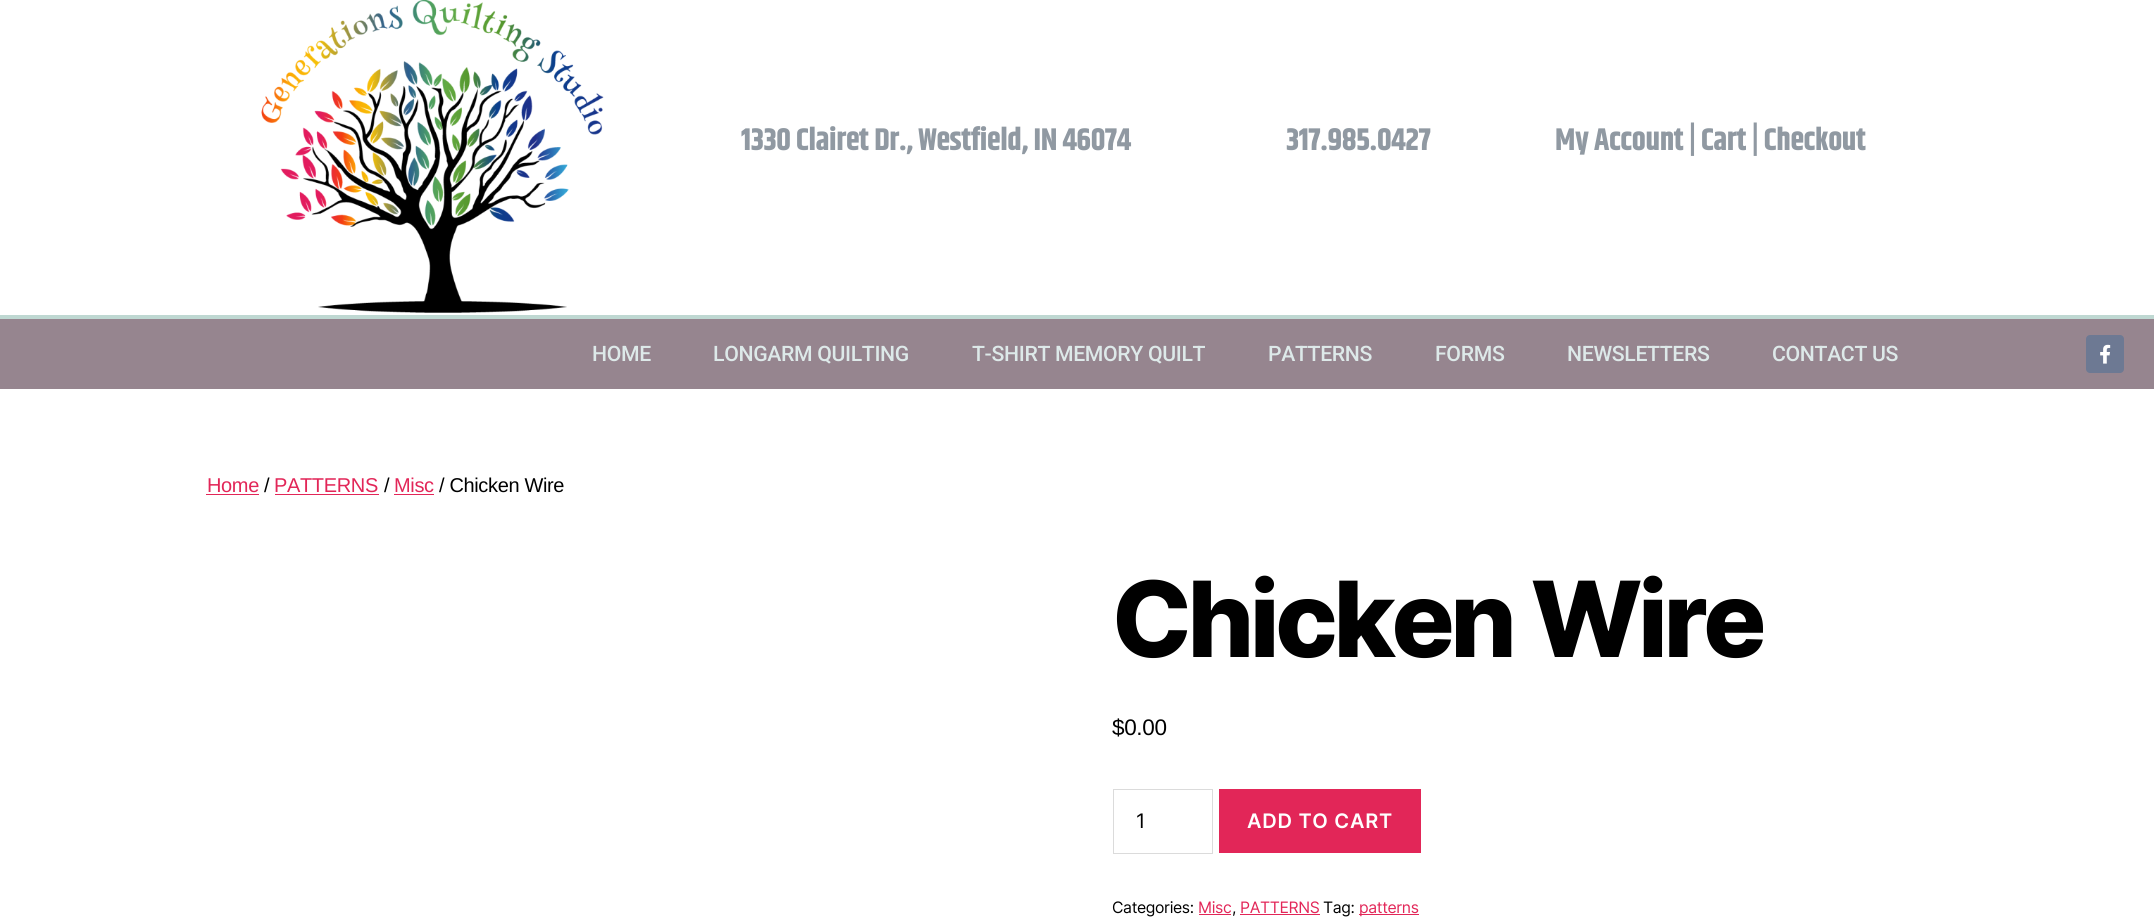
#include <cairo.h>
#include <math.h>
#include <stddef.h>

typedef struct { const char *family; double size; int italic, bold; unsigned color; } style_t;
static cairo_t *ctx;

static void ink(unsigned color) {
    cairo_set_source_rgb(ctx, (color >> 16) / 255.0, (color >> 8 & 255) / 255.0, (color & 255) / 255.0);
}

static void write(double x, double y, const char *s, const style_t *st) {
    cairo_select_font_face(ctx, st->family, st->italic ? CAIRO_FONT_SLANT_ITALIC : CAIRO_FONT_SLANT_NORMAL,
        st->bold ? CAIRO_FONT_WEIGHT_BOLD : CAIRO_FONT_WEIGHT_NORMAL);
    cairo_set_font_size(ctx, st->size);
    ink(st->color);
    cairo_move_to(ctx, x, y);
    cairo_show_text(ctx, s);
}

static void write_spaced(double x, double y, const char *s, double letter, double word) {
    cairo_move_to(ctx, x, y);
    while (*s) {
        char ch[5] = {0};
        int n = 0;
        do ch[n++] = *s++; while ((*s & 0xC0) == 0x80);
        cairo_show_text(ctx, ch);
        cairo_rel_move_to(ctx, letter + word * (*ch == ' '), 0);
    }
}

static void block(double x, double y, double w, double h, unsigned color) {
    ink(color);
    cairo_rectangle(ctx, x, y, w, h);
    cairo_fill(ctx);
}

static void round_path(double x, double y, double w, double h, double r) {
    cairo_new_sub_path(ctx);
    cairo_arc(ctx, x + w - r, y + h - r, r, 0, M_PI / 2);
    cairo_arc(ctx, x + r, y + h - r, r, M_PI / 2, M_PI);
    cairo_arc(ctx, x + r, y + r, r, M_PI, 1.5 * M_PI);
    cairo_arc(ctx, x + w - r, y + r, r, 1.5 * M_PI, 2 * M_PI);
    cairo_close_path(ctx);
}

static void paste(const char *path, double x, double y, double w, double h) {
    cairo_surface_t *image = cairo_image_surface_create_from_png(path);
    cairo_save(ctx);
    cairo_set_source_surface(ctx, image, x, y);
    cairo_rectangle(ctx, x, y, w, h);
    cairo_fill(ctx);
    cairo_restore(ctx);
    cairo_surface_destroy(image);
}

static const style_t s1 = {"Inter", 20, 0, 0, 0x000000};

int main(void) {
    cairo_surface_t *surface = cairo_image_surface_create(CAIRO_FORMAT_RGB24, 2154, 921);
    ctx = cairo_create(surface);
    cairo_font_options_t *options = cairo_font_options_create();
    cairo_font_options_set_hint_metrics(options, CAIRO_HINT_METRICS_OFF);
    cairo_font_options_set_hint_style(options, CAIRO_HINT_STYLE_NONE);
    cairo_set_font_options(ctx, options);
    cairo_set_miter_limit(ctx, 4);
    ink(0xffffff);
    cairo_paint(ctx);
    paste("pic1.png", 261, 0, 343, 313);
    cairo_select_font_face(ctx, "Khand", CAIRO_FONT_SLANT_NORMAL, CAIRO_FONT_WEIGHT_BOLD);
    cairo_set_font_size(ctx, 31.25);
    ink(0x9099a2);
    write_spaced(741, 150, "1330 Clairet Dr., Westfield, IN 46074", -0.35, 0);
    write_spaced(1286, 150, "317.985.0427", -0.35, 0);
    write_spaced(1555, 150, "My Account | Cart | Checkout", -0.35, 0);
    block(0, 319, 2154, 70, 0x96858f);
    block(0, 315, 2154, 4, 0xbfd8d2);
    cairo_select_font_face(ctx, "Roboto Medium", CAIRO_FONT_SLANT_NORMAL, CAIRO_FONT_WEIGHT_NORMAL);
    cairo_set_font_size(ctx, 21.25);
    ink(0xdde9e9);
    write_spaced(592, 361, "HOME", -0.35, 0);
    write_spaced(713, 361, "LONGARM QUILTING", -0.35, 0);
    write_spaced(972, 361, "T-SHIRT MEMORY QUILT", -0.35, 0);
    write_spaced(1268, 361, "PATTERNS", -0.35, 0);
    write_spaced(1435, 361, "FORMS", -0.35, 0);
    write_spaced(1567, 361, "NEWSLETTERS", -0.35, 0);
    write_spaced(1772, 361, "CONTACT US", -0.35, 0);
    ink(0x6d7993);
    round_path(2086, 335, 38, 38, 4);
    cairo_fill(ctx);
    paste("pic2.png", 2100, 344, 11, 20);
    cairo_select_font_face(ctx, "Liberation Sans", CAIRO_FONT_SLANT_NORMAL, CAIRO_FONT_WEIGHT_NORMAL);
    cairo_set_font_size(ctx, 20);
    ink(0xe22658);
    write_spaced(207, 492, "Home", -0.35, 0);
    block(206, 494, 53, 1, 0xe22658);
    ink(0x000000);
    write_spaced(264, 492, "/", -0.35, 0);
    ink(0xe22658);
    write_spaced(274, 492, "PATTERNS", -0.35, 0);
    block(275, 494, 104, 1, 0xe22658);
    ink(0x000000);
    write_spaced(384, 492, "/", -0.35, 0);
    ink(0xe22658);
    write_spaced(394, 492, "Misc", -0.35, 0);
    block(394, 494, 40, 1, 0xe22658);
    ink(0x000000);
    write_spaced(439, 492, "/ Chicken Wire", -0.35, 0);
    cairo_select_font_face(ctx, "Inter ExtraBold", CAIRO_FONT_SLANT_NORMAL, CAIRO_FONT_WEIGHT_NORMAL);
    cairo_set_font_size(ctx, 105);
    write_spaced(1112, 657, "Chicken Wire", -4.4, 0);
    cairo_select_font_face(ctx, "Liberation Sans", CAIRO_FONT_SLANT_NORMAL, CAIRO_FONT_WEIGHT_NORMAL);
    cairo_set_font_size(ctx, 22.5);
    write_spaced(1112, 735, "$0.00", -0.35, 0);
    cairo_rectangle(ctx, 1113.5, 789.5, 99, 64);
    ink(0xdbdbdb);
    cairo_set_line_width(ctx, 1);
    cairo_stroke(ctx);
    write(1136, 828, "1", &s1);
    block(1219, 789, 202, 64, 0xe22658);
    cairo_select_font_face(ctx, "Inter SemiBold", CAIRO_FONT_SLANT_NORMAL, CAIRO_FONT_WEIGHT_NORMAL);
    ink(0xffffff);
    write_spaced(1247, 828, "ADD TO CART", 0.75, 0);
    cairo_select_font_face(ctx, "Inter", CAIRO_FONT_SLANT_NORMAL, CAIRO_FONT_WEIGHT_NORMAL);
    cairo_set_font_size(ctx, 15.75);
    ink(0x000000);
    write_spaced(1112, 913, "Categories:", -0.35, 0);
    ink(0xe22658);
    write_spaced(1198, 913, "Misc", -0.35, 0);
    ink(0x000000);
    write_spaced(1232, 913, ",", -0.35, 0);
    block(1199, 914, 32, 1, 0xe22658);
    block(1240, 914, 80, 1, 0xe22658);
    write_spaced(1240, 913, "PATTERNS", -0.35, 0);
    ink(0x000000);
    write_spaced(1323, 913, "Tag:", -0.35, 0);
    block(1359, 914, 60, 1, 0xe22658);
    write_spaced(1359, 913, "patterns", -0.35, 0);
    cairo_surface_write_to_png(surface, "screenshot.png");
    cairo_font_options_destroy(options);
    cairo_destroy(ctx);
    cairo_surface_destroy(surface);
    return 0;
}
